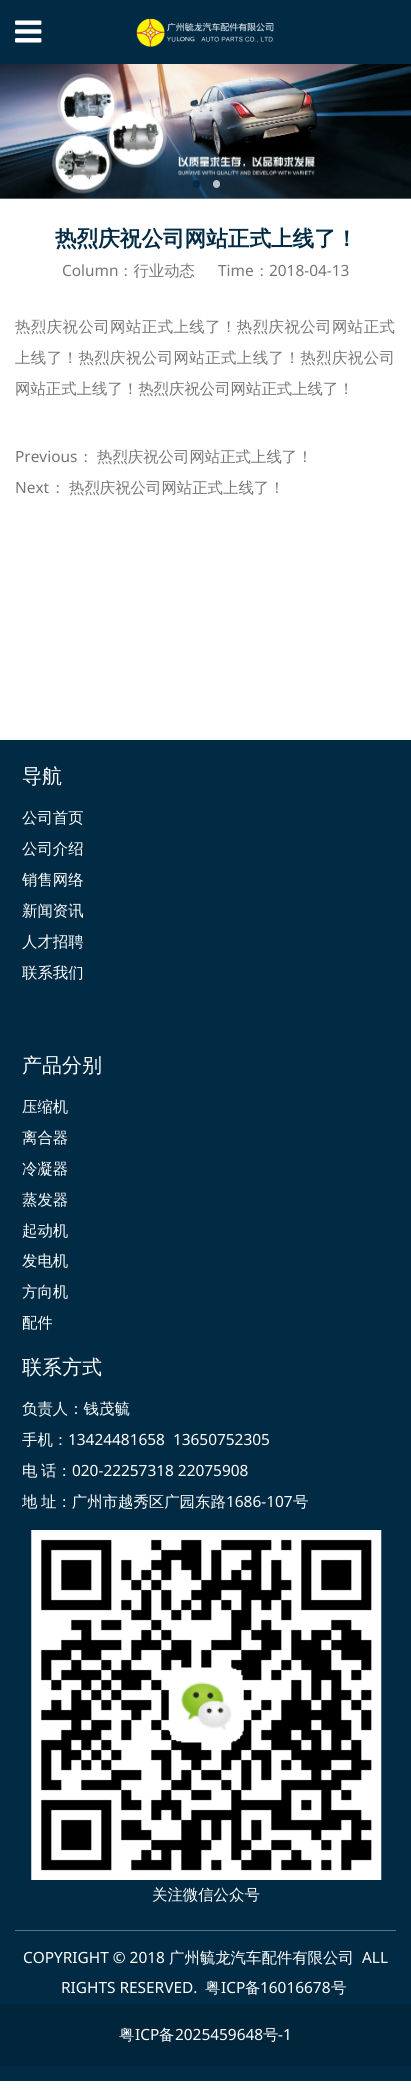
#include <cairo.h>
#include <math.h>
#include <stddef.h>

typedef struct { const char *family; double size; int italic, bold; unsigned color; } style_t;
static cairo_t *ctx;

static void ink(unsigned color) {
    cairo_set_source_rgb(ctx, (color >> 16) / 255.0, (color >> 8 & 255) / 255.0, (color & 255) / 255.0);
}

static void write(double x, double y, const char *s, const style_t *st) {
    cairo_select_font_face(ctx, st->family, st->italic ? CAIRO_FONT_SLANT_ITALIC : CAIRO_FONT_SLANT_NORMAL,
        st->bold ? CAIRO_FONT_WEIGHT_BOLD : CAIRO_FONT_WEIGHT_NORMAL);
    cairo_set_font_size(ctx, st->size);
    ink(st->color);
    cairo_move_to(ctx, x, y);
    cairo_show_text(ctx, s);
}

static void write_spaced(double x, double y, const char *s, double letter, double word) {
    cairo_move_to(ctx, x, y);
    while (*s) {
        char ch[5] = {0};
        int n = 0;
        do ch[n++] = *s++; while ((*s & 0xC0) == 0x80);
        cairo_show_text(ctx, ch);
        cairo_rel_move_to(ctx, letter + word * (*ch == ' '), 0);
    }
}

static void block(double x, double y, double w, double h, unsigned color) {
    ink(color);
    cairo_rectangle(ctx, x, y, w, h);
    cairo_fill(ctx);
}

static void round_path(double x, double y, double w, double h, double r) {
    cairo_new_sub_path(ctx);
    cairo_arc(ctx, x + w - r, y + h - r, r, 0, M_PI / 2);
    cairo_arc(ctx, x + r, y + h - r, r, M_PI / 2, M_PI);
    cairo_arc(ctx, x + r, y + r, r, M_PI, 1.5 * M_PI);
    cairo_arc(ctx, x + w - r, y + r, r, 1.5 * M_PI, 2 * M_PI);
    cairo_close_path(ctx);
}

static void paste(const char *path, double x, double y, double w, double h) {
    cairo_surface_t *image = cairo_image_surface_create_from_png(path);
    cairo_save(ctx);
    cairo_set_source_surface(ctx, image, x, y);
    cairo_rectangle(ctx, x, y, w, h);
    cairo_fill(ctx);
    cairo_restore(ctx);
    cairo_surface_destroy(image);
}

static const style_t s1 = {"WenQuanYi Zen Hei", 21.6, 0, 1, 0x012b44};
static const style_t s2 = {"Noto Sans", 15.4, 0, 0, 0x767676};
static const style_t s3 = {"WenQuanYi Zen Hei Medium", 15.4, 0, 0, 0x767676};
static const style_t s4 = {"WenQuanYi Zen Hei Medium", 20, 0, 0, 0xffffff};
static const style_t s5 = {"WenQuanYi Zen Hei Medium", 15.4, 0, 0, 0xffffff};
static const style_t s6 = {"Noto Sans", 15.4, 0, 0, 0xffffff};

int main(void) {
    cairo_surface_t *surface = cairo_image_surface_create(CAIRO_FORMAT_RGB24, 411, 2090);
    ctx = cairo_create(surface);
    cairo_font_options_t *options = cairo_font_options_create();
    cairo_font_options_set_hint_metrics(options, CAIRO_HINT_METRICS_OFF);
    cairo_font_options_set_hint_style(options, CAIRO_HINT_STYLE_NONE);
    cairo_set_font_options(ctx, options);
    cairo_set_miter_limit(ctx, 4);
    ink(0xffffff);
    cairo_paint(ctx);
    block(0, 0, 411, 64, 0x012b44);
    paste("pic1.png", 15, 20, 27, 23);
    paste("pic2.png", 136, 18, 138, 29);
    paste("pic3.png", 0, 64, 411, 135);
    round_path(193, 180, 7, 8, 3.5);
    cairo_fill(ctx);
    cairo_set_source_rgba(ctx, 1, 1, 1, 0.7);
    round_path(213, 180, 7, 8, 3.5);
    cairo_fill(ctx);
    write(55, 246, "热烈庆祝公司网站正式上线了！", &s1);
    write(62, 276, "Column", &s2);
    write(118, 276, "：行业动态", &s3);
    write(218, 276, "Time", &s2);
    write(254, 276, "：", &s3);
    write(269, 276, "2018-04-13", &s2);
    cairo_select_font_face(ctx, "WenQuanYi Zen Hei Medium", CAIRO_FONT_SLANT_NORMAL, CAIRO_FONT_WEIGHT_NORMAL);
    write_spaced(15, 332, "热烈庆祝公司网站正式上线了！热烈庆祝公司网站正式", 0.45, 0);
    write_spaced(15, 363, "上线了！热烈庆祝公司网站正式上线了！热烈庆祝公司", 0.45, 0);
    write(15, 394, "网站正式上线了！热烈庆祝公司网站正式上线了！", &s3);
    write(15, 462, "Previous", &s2);
    write(78, 462, "：", &s3);
    write(97, 462, "热烈庆祝公司网站正式上线了！", &s3);
    write(15, 493, "Next", &s2);
    write(50, 493, "：", &s3);
    write(69, 493, "热烈庆祝公司网站正式上线了！", &s3);
    block(0, 740, 411, 1341, 0x012b44);
    write(22, 783, "导航", &s4);
    write(22, 823, "公司首页", &s5);
    write(22, 854, "公司介绍", &s5);
    write(22, 885, "销售网络", &s5);
    write(22, 916, "新闻资讯", &s5);
    write(22, 947, "人才招聘", &s5);
    write(22, 978, "联系我们", &s5);
    write(22, 1072, "产品分别", &s4);
    write(22, 1112, "压缩机", &s5);
    write(22, 1143, "离合器", &s5);
    write(22, 1174, "冷凝器", &s5);
    write(22, 1205, "蒸发器", &s5);
    write(22, 1236, "起动机", &s5);
    write(22, 1266, "发电机", &s5);
    write(22, 1297, "方向机", &s5);
    write(22, 1328, "配件", &s5);
    write(22, 1374, "联系方式", &s4);
    write(22, 1414, "负责人：钱茂毓", &s5);
    write(22, 1445, "手机：", &s5);
    write(68, 1445, "13424481658  13650752305", &s6);
    write(22, 1476, "电", &s5);
    write(41, 1476, "话：", &s5);
    write(72, 1476, "020-22257318 22075908", &s6);
    cairo_select_font_face(ctx, "WenQuanYi Zen Hei Medium", CAIRO_FONT_SLANT_NORMAL, CAIRO_FONT_WEIGHT_NORMAL);
    write_spaced(22, 1507, "地 址：广州市越秀区广园东路", 0, -1);
    write(226, 1507, "1686-107", &s6);
    write(293, 1507, "号", &s5);
    paste("pic4.png", 31, 1530, 351, 350);
    write(152, 1900, "关注微信公众号", &s5);
    block(15, 1930, 381, 1, 0x5e7380);
    write(23, 1963, "COPYRIGHT © 2018", &s6);
    write(169, 1963, "广州毓龙汽车配件有限公司", &s5);
    write(362, 1963, "ALL", &s6);
    write(61, 1993, "RIGHTS RESERVED.", &s6);
    write(205, 1993, "粤", &s5);
    write(221, 1993, "ICP", &s6);
    write(245, 1993, "备", &s5);
    write(260, 1993, "16016678", &s6);
    write(331, 1993, "号", &s5);
    block(0, 2004, 411, 62, 0x01253a);
    write(119, 2040, "粤", &s5);
    write(135, 2040, "ICP", &s6);
    write(159, 2040, "备", &s5);
    write(175, 2040, "2025459648", &s6);
    write(263, 2040, "号", &s5);
    write(278, 2040, "-1", &s6);
    cairo_surface_write_to_png(surface, "screenshot.png");
    cairo_font_options_destroy(options);
    cairo_destroy(ctx);
    cairo_surface_destroy(surface);
    return 0;
}
